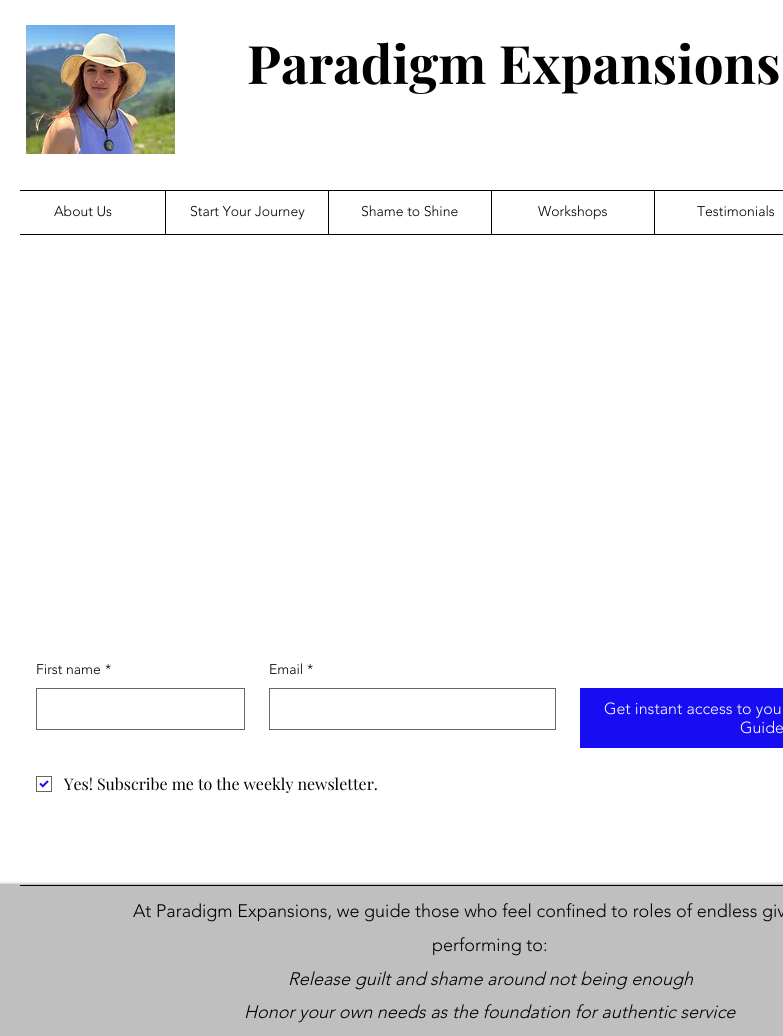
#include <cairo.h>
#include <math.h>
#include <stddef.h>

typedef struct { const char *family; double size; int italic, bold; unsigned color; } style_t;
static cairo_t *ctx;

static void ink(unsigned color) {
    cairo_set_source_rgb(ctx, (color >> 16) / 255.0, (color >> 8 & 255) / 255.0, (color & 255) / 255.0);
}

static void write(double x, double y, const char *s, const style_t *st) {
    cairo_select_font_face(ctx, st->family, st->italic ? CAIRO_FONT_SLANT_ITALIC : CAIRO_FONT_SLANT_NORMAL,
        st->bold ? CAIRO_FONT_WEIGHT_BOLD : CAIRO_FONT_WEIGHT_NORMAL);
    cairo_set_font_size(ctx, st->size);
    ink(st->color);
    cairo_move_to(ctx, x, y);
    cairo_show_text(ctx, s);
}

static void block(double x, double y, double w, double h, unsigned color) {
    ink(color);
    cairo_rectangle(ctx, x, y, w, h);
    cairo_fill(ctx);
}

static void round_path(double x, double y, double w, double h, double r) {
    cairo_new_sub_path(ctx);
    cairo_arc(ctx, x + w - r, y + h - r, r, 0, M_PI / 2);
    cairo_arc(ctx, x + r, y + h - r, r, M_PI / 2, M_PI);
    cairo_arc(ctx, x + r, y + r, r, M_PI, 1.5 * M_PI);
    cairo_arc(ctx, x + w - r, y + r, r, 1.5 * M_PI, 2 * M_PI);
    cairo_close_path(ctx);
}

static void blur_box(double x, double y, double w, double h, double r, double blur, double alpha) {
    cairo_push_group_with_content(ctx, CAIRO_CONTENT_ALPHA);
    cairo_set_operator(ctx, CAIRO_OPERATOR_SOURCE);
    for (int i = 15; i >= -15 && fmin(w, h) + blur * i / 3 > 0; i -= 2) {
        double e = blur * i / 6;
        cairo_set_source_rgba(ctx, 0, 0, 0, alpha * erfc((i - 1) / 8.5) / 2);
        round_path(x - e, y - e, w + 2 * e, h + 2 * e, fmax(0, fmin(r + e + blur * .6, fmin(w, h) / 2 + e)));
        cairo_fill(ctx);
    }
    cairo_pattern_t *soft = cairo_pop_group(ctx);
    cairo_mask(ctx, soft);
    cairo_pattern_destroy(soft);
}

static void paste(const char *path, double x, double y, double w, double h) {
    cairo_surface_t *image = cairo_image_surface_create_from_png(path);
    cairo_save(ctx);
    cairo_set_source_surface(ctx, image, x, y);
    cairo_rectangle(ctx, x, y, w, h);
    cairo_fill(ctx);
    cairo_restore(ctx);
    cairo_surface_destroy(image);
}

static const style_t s1 = {"Playfair Display", 53, 0, 1, 0x000000};
static const style_t s2 = {"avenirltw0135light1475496 Light", 14, 0, 0, 0x000000};
static const style_t s3 = {"avenirltw0135light1475496 Light", 16, 0, 0, 0xffffff};
static const style_t s4 = {"Playfair Display", 16, 0, 0, 0x000000};
static const style_t s5 = {"avenirltw0135light1475496 Light", 18, 0, 0, 0x000000};
static const style_t s6 = {"avenirltw0135light1475496 Light", 18, 1, 0, 0x000000};

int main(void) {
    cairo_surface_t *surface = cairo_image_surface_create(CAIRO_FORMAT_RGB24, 783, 1036);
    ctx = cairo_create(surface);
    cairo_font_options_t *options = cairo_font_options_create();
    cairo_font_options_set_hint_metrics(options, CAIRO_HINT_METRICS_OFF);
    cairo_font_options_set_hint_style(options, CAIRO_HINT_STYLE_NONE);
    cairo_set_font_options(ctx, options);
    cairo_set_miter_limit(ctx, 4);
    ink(0xffffff);
    cairo_paint(ctx);
    paste("pic1.png", 26, 25, 149, 129);
    write(247, 84, "Paradigm Expansions", &s1);
    block(165, 190, 1, 44, 0x000000);
    block(328, 190, 1, 44, 0x000000);
    block(491, 190, 1, 44, 0x000000);
    block(654, 190, 1, 44, 0x000000);
    block(20, 190, 763, 1, 0x000000);
    write(54, 216, "About Us", &s2);
    write(190, 216, "Start Your Journey", &s2);
    write(361, 216, "Shame to Shine", &s2);
    write(538, 216, "Workshops", &s2);
    write(697, 216, "Testimonials", &s2);
    block(20, 234, 763, 1, 0x000000);
    write(36, 674, "First name", &s2);
    write(105, 674, "*", &s2);
    write(269, 674, "Email", &s2);
    write(307, 674, "*", &s2);
    cairo_rectangle(ctx, 36.5, 688.5, 208, 41);
    ink(0x666666);
    cairo_set_line_width(ctx, 1);
    cairo_stroke(ctx);
    cairo_rectangle(ctx, 269.5, 688.5, 286, 41);
    cairo_stroke(ctx);
    block(580, 688, 203, 60, 0x170df2);
    write(604, 714, "Get instant access to you", &s3);
    write(740, 733, "Guide", &s3);
    cairo_rectangle(ctx, 36.5, 776.5, 15, 15);
    ink(0x666666);
    cairo_stroke(ctx);
    paste("pic2.png", 39, 780, 10, 8);
    write(64, 790, "Yes! Subscribe me to the weekly newsletter.", &s4);
    ink(0x000000);
    blur_box(0, 885, 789, 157, 0, 2, 0.6);
    block(0, 885, 783, 151, 0xbfbfbf);
    block(20, 885, 763, 1, 0x000000);
    write(133, 917, "At Paradigm Expansions, we guide those who feel confined to roles of endless giv", &s5);
    write(432, 951, "performing to:", &s5);
    write(288, 985, "Release guilt and shame around not being enough", &s6);
    write(244, 1018, "Honor your own needs as the foundation for authentic service", &s6);
    cairo_surface_write_to_png(surface, "screenshot.png");
    cairo_font_options_destroy(options);
    cairo_destroy(ctx);
    cairo_surface_destroy(surface);
    return 0;
}
